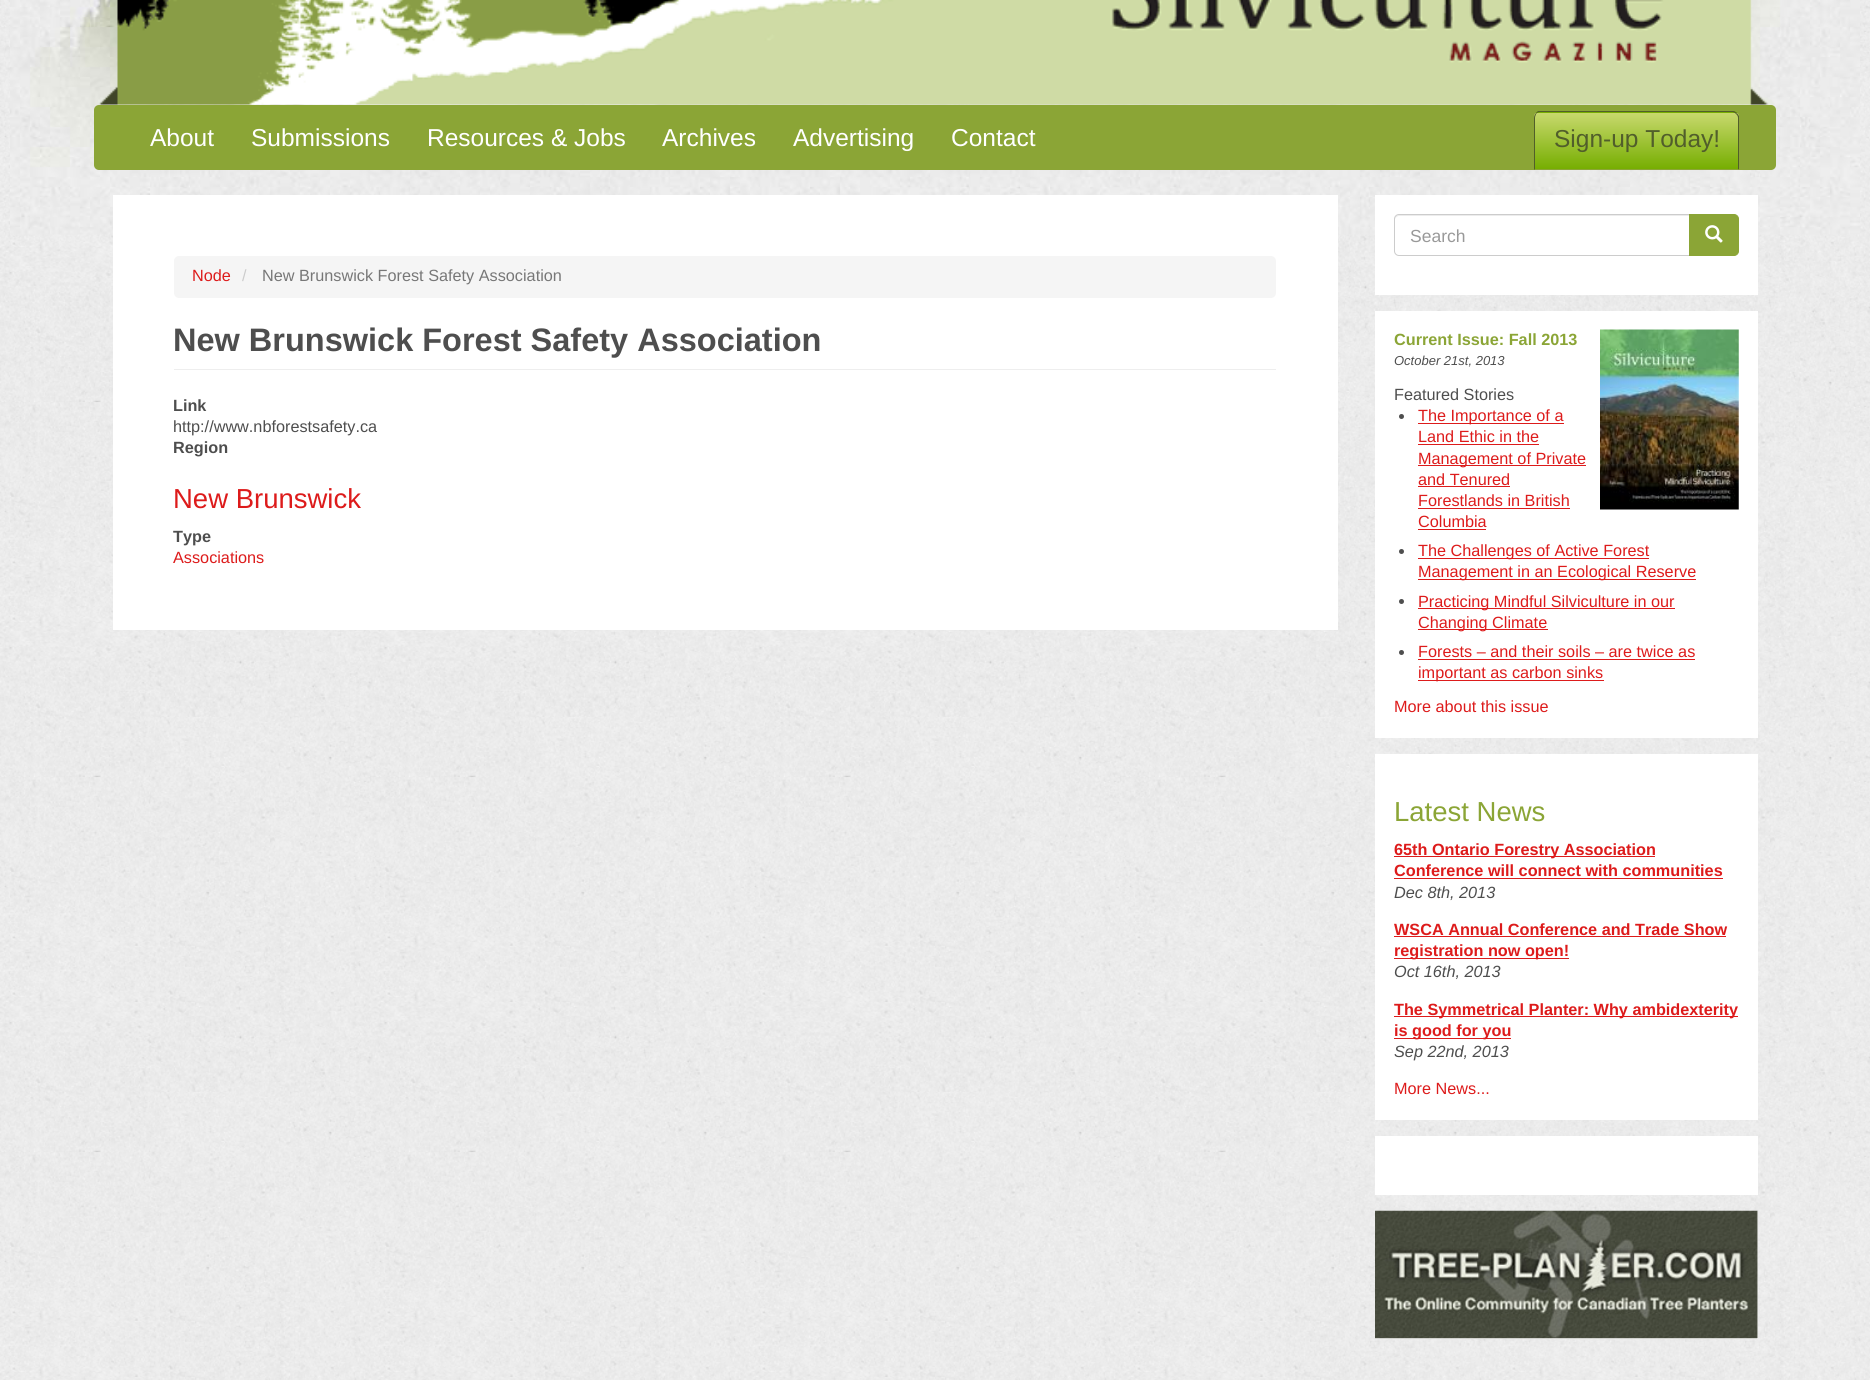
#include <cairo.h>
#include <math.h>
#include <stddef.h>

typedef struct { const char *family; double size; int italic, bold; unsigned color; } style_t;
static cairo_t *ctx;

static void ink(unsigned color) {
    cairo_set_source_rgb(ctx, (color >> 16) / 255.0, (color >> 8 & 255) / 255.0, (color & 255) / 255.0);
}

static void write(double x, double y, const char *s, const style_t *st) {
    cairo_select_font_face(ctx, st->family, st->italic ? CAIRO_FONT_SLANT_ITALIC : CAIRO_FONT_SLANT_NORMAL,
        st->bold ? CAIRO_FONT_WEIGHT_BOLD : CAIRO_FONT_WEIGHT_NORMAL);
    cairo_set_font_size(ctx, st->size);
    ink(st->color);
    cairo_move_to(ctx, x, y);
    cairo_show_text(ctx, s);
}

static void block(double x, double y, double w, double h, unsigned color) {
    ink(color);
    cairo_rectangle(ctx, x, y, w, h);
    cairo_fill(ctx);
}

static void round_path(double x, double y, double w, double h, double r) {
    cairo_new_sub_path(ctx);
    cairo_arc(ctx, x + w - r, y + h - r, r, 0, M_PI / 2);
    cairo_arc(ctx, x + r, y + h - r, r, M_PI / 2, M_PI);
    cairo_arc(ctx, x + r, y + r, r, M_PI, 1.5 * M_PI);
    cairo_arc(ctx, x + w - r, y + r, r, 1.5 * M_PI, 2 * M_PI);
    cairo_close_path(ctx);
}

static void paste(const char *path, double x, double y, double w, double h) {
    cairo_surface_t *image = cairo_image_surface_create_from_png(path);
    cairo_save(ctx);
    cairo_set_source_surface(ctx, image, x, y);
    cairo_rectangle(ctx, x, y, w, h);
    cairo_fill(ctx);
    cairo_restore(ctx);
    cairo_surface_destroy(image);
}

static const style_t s1 = {"Liberation Sans", 24.5, 0, 0, 0xffffff};
static const style_t s2 = {"Liberation Sans", 24.5, 0, 0, 0x515e2b};
static const style_t s3 = {"Liberation Sans", 16.25, 0, 0, 0xdd1b1b};
static const style_t s4 = {"Liberation Sans", 16.25, 0, 0, 0xcccccc};
static const style_t s5 = {"Liberation Sans", 16.25, 0, 0, 0x777777};
static const style_t s6 = {"Liberation Sans", 32.5, 0, 1, 0x4e4e4e};
static const style_t s7 = {"Liberation Sans", 16.25, 0, 1, 0x4e4e4e};
static const style_t s8 = {"Liberation Sans", 16.25, 0, 0, 0x4e4e4e};
static const style_t s9 = {"Liberation Sans", 27.5, 0, 0, 0xdd1b1b};
static const style_t s10 = {"Liberation Sans", 17.5, 0, 0, 0x999999};
static const style_t s11 = {"Liberation Sans", 16.25, 0, 1, 0x8ba536};
static const style_t s12 = {"Liberation Sans", 13, 1, 0, 0x4e4e4e};
static const style_t s13 = {"Liberation Sans", 27.5, 0, 0, 0x8ba536};
static const style_t s14 = {"Liberation Sans", 16.25, 0, 1, 0xdd1b1b};
static const style_t s15 = {"Liberation Sans", 16.25, 1, 0, 0x4e4e4e};

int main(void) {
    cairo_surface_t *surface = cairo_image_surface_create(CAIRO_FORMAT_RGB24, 1870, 1380);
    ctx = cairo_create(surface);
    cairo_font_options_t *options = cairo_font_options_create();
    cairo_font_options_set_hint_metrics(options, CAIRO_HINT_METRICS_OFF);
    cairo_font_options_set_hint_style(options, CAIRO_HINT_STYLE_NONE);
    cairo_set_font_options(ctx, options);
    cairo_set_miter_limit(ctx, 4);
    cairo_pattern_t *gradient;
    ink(0xffffff);
    cairo_paint(ctx);
    paste("pic1.png", 0, 0, 1870, 1380);
    paste("pic2.png", 10, 0, 1850, 235);
    paste("pic3.png", 98, 0, 1677, 105);
    ink(0x8ba536);
    round_path(94, 105, 1682, 65, 5);
    cairo_fill(ctx);
    write(150, 146, "About", &s1);
    write(251, 146, "Submissions", &s1);
    write(427, 146, "Resources & Jobs", &s1);
    write(662, 146, "Archives", &s1);
    write(793, 146, "Advertising", &s1);
    write(951, 146, "Contact", &s1);
    cairo_save(ctx);
    cairo_new_path(ctx);
    cairo_move_to(ctx, 1540, 111);
    cairo_line_to(ctx, 1733, 111);
    cairo_curve_to(ctx, 1736.5, 111, 1739, 113.5, 1739, 117);
    cairo_line_to(ctx, 1739, 170);
    cairo_line_to(ctx, 1534, 170);
    cairo_line_to(ctx, 1534, 117);
    cairo_curve_to(ctx, 1534, 113.5, 1536.5, 111, 1540, 111);
    cairo_close_path(ctx);
    cairo_clip(ctx);
    gradient = cairo_pattern_create_linear(1636, 56, 1636, 113);
    cairo_pattern_add_color_stop_rgba(gradient, 0, 0.788, 0.851, 0.435, 1);
    cairo_pattern_add_color_stop_rgba(gradient, 1, 0.463, 0.682, 0.004, 1);
    cairo_set_source(ctx, gradient);
    cairo_pattern_destroy(gradient);
    cairo_rectangle(ctx, 1534, 111, 205, 2);
    cairo_fill(ctx);
    gradient = cairo_pattern_create_linear(1636, 112, 1636, 169);
    cairo_pattern_add_color_stop_rgba(gradient, 0, 0.788, 0.851, 0.435, 1);
    cairo_pattern_add_color_stop_rgba(gradient, 1, 0.463, 0.682, 0.004, 1);
    cairo_set_source(ctx, gradient);
    cairo_pattern_destroy(gradient);
    cairo_rectangle(ctx, 1534, 113, 205, 56);
    cairo_fill(ctx);
    cairo_restore(ctx);
    ink(0x515e2b);
    cairo_new_path(ctx);
    cairo_move_to(ctx, 1540, 112);
    cairo_curve_to(ctx, 1538, 112, 1537, 113, 1536, 114);
    cairo_line_to(ctx, 1536, 113);
    cairo_line_to(ctx, 1538, 111);
    cairo_line_to(ctx, 1734, 111);
    cairo_line_to(ctx, 1737, 113);
    cairo_line_to(ctx, 1736, 114);
    cairo_curve_to(ctx, 1735, 113, 1734, 112, 1732, 112);
    cairo_close_path(ctx);
    cairo_fill(ctx);
    cairo_new_path(ctx);
    cairo_move_to(ctx, 1739, 116);
    cairo_line_to(ctx, 1739, 170);
    cairo_line_to(ctx, 1738, 169);
    cairo_line_to(ctx, 1738, 118);
    cairo_curve_to(ctx, 1738, 116, 1737, 115, 1736, 114);
    cairo_line_to(ctx, 1737, 113);
    cairo_close_path(ctx);
    cairo_fill(ctx);
    ink(0x8ba536);
    cairo_new_path(ctx);
    cairo_move_to(ctx, 1739, 170);
    cairo_line_to(ctx, 1738, 169);
    cairo_line_to(ctx, 1535, 169);
    cairo_line_to(ctx, 1534, 170);
    cairo_close_path(ctx);
    cairo_fill(ctx);
    ink(0x515e2b);
    cairo_new_path(ctx);
    cairo_move_to(ctx, 1534, 170);
    cairo_line_to(ctx, 1534, 118);
    cairo_curve_to(ctx, 1534, 116, 1535, 114, 1536, 113);
    cairo_line_to(ctx, 1536, 114);
    cairo_curve_to(ctx, 1536, 115, 1535, 116, 1535, 118);
    cairo_line_to(ctx, 1535, 169);
    cairo_close_path(ctx);
    cairo_fill(ctx);
    write(1554, 147, "Sign-up Today!", &s2);
    block(113, 195, 1225, 435, 0xffffff);
    ink(0xf5f5f5);
    round_path(174, 256, 1102, 42, 5);
    cairo_fill(ctx);
    write(192, 281, "Node", &s3);
    write(242, 281, "/", &s4);
    write(262, 281, "New Brunswick Forest Safety Association", &s5);
    block(174, 369, 1102, 1, 0xeeeeee);
    write(173, 351, "New Brunswick Forest Safety Association", &s6);
    write(173, 411, "Link", &s7);
    write(173, 432, "http://www.nbforestsafety.ca", &s8);
    write(173, 453, "Region", &s7);
    write(173, 508, "New Brunswick", &s9);
    write(173, 542, "Type", &s7);
    write(173, 563, "Associations", &s3);
    block(1375, 195, 383, 100, 0xffffff);
    ink(0xececec);
    cairo_new_path(ctx);
    cairo_move_to(ctx, 1399, 216);
    cairo_line_to(ctx, 1689, 216);
    cairo_line_to(ctx, 1689, 215);
    cairo_line_to(ctx, 1399, 215);
    cairo_curve_to(ctx, 1396, 215, 1395, 217, 1395, 220);
    cairo_curve_to(ctx, 1395, 218, 1397, 216, 1399, 216);
    cairo_close_path(ctx);
    cairo_fill(ctx);
    cairo_new_path(ctx);
    cairo_move_to(ctx, 1399, 214.5);
    cairo_line_to(ctx, 1689.5, 214.5);
    cairo_line_to(ctx, 1689.5, 255.5);
    cairo_line_to(ctx, 1399, 255.5);
    cairo_curve_to(ctx, 1396.5, 255.5, 1394.5, 253.5, 1394.5, 251);
    cairo_line_to(ctx, 1394.5, 219);
    cairo_curve_to(ctx, 1394.5, 216.5, 1396.5, 214.5, 1399, 214.5);
    cairo_close_path(ctx);
    ink(0xcccccc);
    cairo_set_line_width(ctx, 1);
    cairo_stroke(ctx);
    write(1410, 242, "Search", &s10);
    ink(0x8ba536);
    cairo_new_path(ctx);
    cairo_move_to(ctx, 1689.5, 214.5);
    cairo_line_to(ctx, 1734, 214.5);
    cairo_curve_to(ctx, 1736.5, 214.5, 1738.5, 216.5, 1738.5, 219);
    cairo_line_to(ctx, 1738.5, 251);
    cairo_curve_to(ctx, 1738.5, 253.5, 1736.5, 255.5, 1734, 255.5);
    cairo_line_to(ctx, 1689.5, 255.5);
    cairo_close_path(ctx);
    cairo_fill_preserve(ctx);
    cairo_stroke(ctx);
    paste("pic4.png", 1705, 225, 18, 18);
    block(1375, 311, 383, 427, 0xffffff);
    write(1394, 345, "Current Issue: Fall 2013", &s11);
    paste("pic5.png", 1600, 329, 139, 181);
    write(1394, 365, "October 21st, 2013", &s12);
    write(1394, 400, "Featured Stories", &s8);
    cairo_new_path(ctx);
    cairo_arc(ctx, 1401.5, 416.5, 2.5, 0, 2 * M_PI);
    cairo_fill(ctx);
    block(1418, 423, 146, 1, 0xdd1b1b);
    write(1418, 421, "The Importance of a", &s3);
    write(1418, 442, "Land Ethic in the", &s3);
    block(1418, 444, 121, 1, 0xdd1b1b);
    block(1418, 465, 168, 1, 0xdd1b1b);
    write(1418, 464, "Management of Private", &s3);
    write(1418, 485, "and Tenured", &s3);
    block(1418, 486, 92, 1, 0xdd1b1b);
    write(1418, 506, "Forestlands in British", &s3);
    block(1418, 508, 152, 1, 0xdd1b1b);
    write(1418, 527, "Columbia", &s3);
    block(1418, 529, 68, 1, 0xdd1b1b);
    ink(0x4e4e4e);
    cairo_new_path(ctx);
    cairo_arc(ctx, 1401.5, 551.5, 2.5, 0, 2 * M_PI);
    cairo_fill(ctx);
    block(1418, 558, 231, 1, 0xdd1b1b);
    write(1418, 556, "The Challenges of Active Forest", &s3);
    block(1418, 579, 278, 1, 0xdd1b1b);
    write(1418, 577, "Management in an Ecological Reserve", &s3);
    ink(0x4e4e4e);
    cairo_new_path(ctx);
    cairo_arc(ctx, 1401.5, 601.5, 2.5, 0, 2 * M_PI);
    cairo_fill(ctx);
    block(1418, 608, 257, 1, 0xdd1b1b);
    write(1418, 607, "Practicing Mindful Silviculture in our", &s3);
    block(1418, 629, 130, 1, 0xdd1b1b);
    write(1418, 628, "Changing Climate", &s3);
    ink(0x4e4e4e);
    cairo_new_path(ctx);
    cairo_arc(ctx, 1401.5, 652.5, 2.5, 0, 2 * M_PI);
    cairo_fill(ctx);
    write(1418, 657, "Forests – and their soils – are twice as", &s3);
    block(1418, 659, 277, 1, 0xdd1b1b);
    block(1418, 680, 186, 1, 0xdd1b1b);
    write(1418, 678, "important as carbon sinks", &s3);
    write(1394, 712, "More about this issue", &s3);
    block(1375, 754, 383, 366, 0xffffff);
    write(1394, 821, "Latest News", &s13);
    block(1394, 856, 261, 1, 0xdd1b1b);
    write(1394, 855, "65th Ontario Forestry Association", &s14);
    write(1394, 876, "Conference will connect with communities", &s14);
    block(1394, 878, 329, 1, 0xdd1b1b);
    write(1394, 898, "Dec 8th, 2013", &s15);
    write(1394, 935, "WSCA Annual Conference and Trade Show", &s14);
    block(1394, 936, 332, 1, 0xdd1b1b);
    block(1394, 958, 175, 1, 0xdd1b1b);
    write(1394, 956, "registration now open!", &s14);
    write(1394, 977, "Oct 16th, 2013", &s15);
    block(1394, 1016, 344, 1, 0xdd1b1b);
    write(1394, 1015, "The Symmetrical Planter: Why ambidexterity", &s14);
    block(1394, 1038, 117, 1, 0xdd1b1b);
    write(1394, 1036, "is good for you", &s14);
    write(1394, 1057, "Sep 22nd, 2013", &s15);
    write(1394, 1094, "More News...", &s3);
    block(1375, 1136, 383, 59, 0xffffff);
    block(1375, 1211, 383, 128, 0xffffff);
    paste("pic6.png", 1375, 1210, 383, 129);
    cairo_surface_write_to_png(surface, "screenshot.png");
    cairo_font_options_destroy(options);
    cairo_destroy(ctx);
    cairo_surface_destroy(surface);
    return 0;
}
